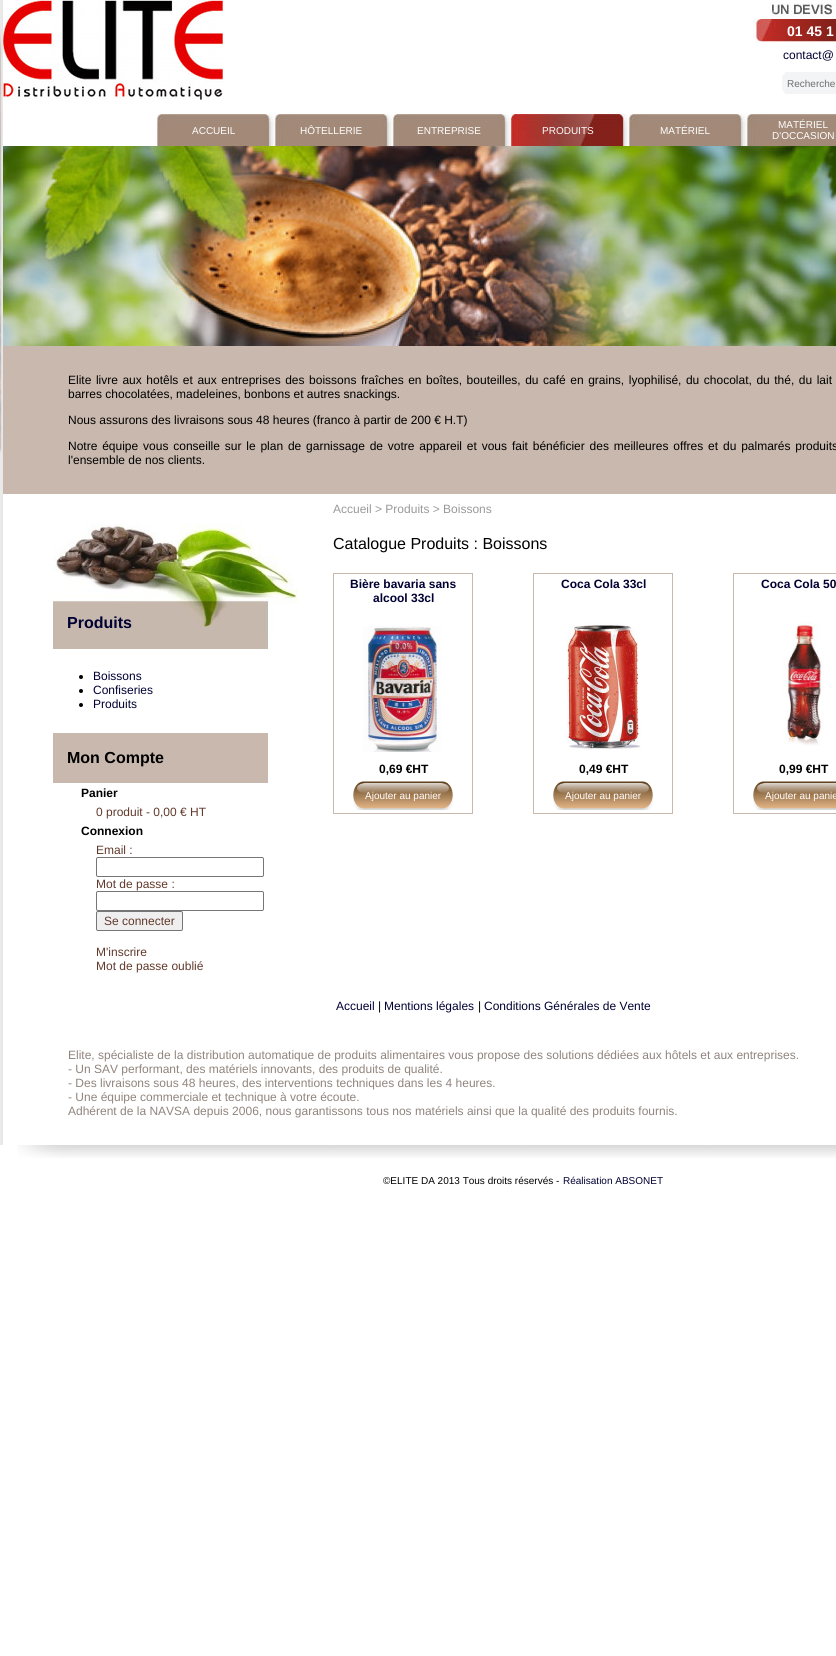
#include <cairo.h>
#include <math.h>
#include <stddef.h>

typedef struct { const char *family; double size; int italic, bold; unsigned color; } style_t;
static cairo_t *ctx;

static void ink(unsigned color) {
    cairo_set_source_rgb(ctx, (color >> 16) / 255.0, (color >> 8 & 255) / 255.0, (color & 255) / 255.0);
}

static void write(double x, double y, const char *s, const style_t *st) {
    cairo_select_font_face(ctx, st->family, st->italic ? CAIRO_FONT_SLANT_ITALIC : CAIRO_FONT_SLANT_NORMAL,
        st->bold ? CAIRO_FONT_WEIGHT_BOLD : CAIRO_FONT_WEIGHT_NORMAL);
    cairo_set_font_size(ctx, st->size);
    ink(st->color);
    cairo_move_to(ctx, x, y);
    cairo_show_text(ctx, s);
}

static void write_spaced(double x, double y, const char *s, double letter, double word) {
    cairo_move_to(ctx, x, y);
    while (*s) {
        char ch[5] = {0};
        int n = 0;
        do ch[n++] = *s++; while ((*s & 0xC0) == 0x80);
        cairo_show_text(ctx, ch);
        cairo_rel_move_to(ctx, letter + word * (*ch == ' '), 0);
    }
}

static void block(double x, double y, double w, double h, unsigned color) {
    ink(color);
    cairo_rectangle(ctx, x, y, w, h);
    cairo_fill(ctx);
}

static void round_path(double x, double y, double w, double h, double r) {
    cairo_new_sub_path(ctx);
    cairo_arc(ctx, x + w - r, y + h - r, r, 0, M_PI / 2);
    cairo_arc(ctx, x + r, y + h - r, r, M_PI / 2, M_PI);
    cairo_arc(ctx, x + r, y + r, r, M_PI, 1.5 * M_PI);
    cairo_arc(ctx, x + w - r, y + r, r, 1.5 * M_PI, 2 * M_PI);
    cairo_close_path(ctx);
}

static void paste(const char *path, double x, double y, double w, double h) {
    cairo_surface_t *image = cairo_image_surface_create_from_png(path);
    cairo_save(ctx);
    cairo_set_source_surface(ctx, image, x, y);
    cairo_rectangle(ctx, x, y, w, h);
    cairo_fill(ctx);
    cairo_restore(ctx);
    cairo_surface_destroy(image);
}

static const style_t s1 = {"Liberation Sans", 14, 0, 1, 0xffffff};
static const style_t s2 = {"Liberation Sans", 12, 0, 0, 0x000033};
static const style_t s3 = {"Liberation Sans", 10, 0, 0, 0x6d6e6f};
static const style_t s4 = {"Liberation Sans", 10, 0, 0, 0xffffff};
static const style_t s5 = {"Liberation Sans", 12, 0, 0, 0x000000};
static const style_t s6 = {"Liberation Sans", 12, 0, 0, 0x999999};
static const style_t s7 = {"Liberation Sans", 16, 0, 1, 0x000033};
static const style_t s8 = {"Liberation Sans", 16, 0, 1, 0x000000};
static const style_t s9 = {"Liberation Sans", 12, 0, 1, 0x000000};
static const style_t s10 = {"Liberation Sans", 12, 0, 0, 0x61392b};
static const style_t s11 = {"Liberation Sans", 16, 0, 0, 0x000000};
static const style_t s12 = {"Liberation Sans", 12, 0, 1, 0x000033};
static const style_t s13 = {"Liberation Sans", 12, 0, 0, 0x90847c};
static const style_t s14 = {"Liberation Sans", 10, 0, 0, 0x000000};
static const style_t s15 = {"Liberation Sans", 10, 0, 0, 0x000033};

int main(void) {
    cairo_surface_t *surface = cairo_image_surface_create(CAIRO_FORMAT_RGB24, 836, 1656);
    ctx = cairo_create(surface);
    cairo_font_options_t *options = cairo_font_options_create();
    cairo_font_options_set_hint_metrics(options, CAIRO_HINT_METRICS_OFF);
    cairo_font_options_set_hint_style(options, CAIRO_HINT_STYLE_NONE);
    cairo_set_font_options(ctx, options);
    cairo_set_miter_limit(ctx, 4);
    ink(0xffffff);
    cairo_paint(ctx);
    paste("pic1.png", 0, 0, 3, 1145);
    paste("pic2.png", 0, 30, 2, 423);
    paste("pic3.png", 3, 0, 220, 100);
    paste("pic4.png", 753, 3, 83, 40);
    write(787, 36, "01 45 1", &s1);
    write(783, 59, "contact@", &s2);
    paste("pic5.png", 782, 73, 3, 20);
    block(785, 72, 51, 22, 0xf3f4f5);
    write(787, 87, "Recherche", &s3);
    paste("pic6.png", 157, 114, 118, 32);
    write(192, 134, "ACCUEIL", &s4);
    paste("pic6.png", 275, 114, 118, 32);
    write(300, 134, "HÔTELLERIE", &s4);
    paste("pic6.png", 393, 114, 118, 32);
    write(417, 134, "ENTREPRISE", &s4);
    paste("pic7.png", 511, 114, 118, 32);
    write(542, 134, "PRODUITS", &s4);
    paste("pic6.png", 629, 114, 118, 32);
    write(660, 134, "MATÉRIEL", &s4);
    paste("pic8.png", 747, 114, 89, 32);
    write(778, 128, "MATÉRIEL", &s4);
    write(772, 139, "D'OCCASION", &s4);
    paste("pic9.png", 3, 146, 833, 200);
    block(3, 346, 833, 148, 0xc8b8ad);
    cairo_set_font_size(ctx, 12);
    ink(0x000000);
    write_spaced(68, 384, "Elite livre aux hotêls et aux entreprises des boissons fraîches en boîtes, bouteilles, du café en grains, lyophilisé, du chocolat, du thé, du lait", 0, 1.2);
    write(68, 398, "barres chocolatées, madeleines, bonbons et autres snackings.", &s5);
    write(68, 424, "Nous assurons des livraisons sous 48 heures (franco à partir de 200 € H.T)", &s5);
    write_spaced(68, 450, "Notre équipe vous conseille sur le plan de garnissage de votre appareil et vous fait bénéficier des meilleures offres et du palmarés produits", 0, 1.5);
    write(68, 464, "l'ensemble de nos clients.", &s5);
    write(333, 513, "Accueil > Produits > Boissons", &s6);
    paste("pic10.png", 53, 524, 245, 125);
    write(67, 628, "Produits", &s7);
    ink(0x000000);
    cairo_new_path(ctx);
    cairo_arc(ctx, 81, 677, 2, 0, 2 * M_PI);
    cairo_fill(ctx);
    write(93, 680, "Boissons", &s2);
    ink(0x000000);
    cairo_new_path(ctx);
    cairo_arc(ctx, 81, 691, 2, 0, 2 * M_PI);
    cairo_fill(ctx);
    write(93, 694, "Confiseries", &s2);
    ink(0x000000);
    cairo_new_path(ctx);
    cairo_arc(ctx, 81, 705, 2, 0, 2 * M_PI);
    cairo_fill(ctx);
    write(93, 708, "Produits", &s2);
    block(53, 733, 215, 50, 0xc8b8ad);
    write(67, 763, "Mon Compte", &s8);
    write(81, 797, "Panier", &s9);
    write(96, 816, "0 produit - 0,00 € HT", &s10);
    write(81, 835, "Connexion", &s9);
    write(96, 854, "Email :", &s10);
    round_path(96.5, 857.5, 167, 19, 1.5);
    ink(0x767676);
    cairo_set_line_width(ctx, 1);
    cairo_stroke(ctx);
    write(96, 888, "Mot de passe :", &s10);
    round_path(96.5, 891.5, 167, 19, 1.5);
    ink(0x767676);
    cairo_stroke(ctx);
    ink(0xefefef);
    round_path(96.5, 911.5, 86, 19, 1.5);
    cairo_fill_preserve(ctx);
    ink(0x767676);
    cairo_stroke(ctx);
    write(104, 925, "Se connecter", &s10);
    write(96, 956, "M'inscrire", &s10);
    write(96, 970, "Mot de passe oublié", &s10);
    write(333, 549, "Catalogue Produits : Boissons", &s11);
    block(333, 573, 140, 241, 0xc8b8ad);
    block(334, 574, 138, 239, 0xffffff);
    write(350, 588, "Bière bavaria sans", &s12);
    write(373, 602, "alcool 33cl", &s12);
    paste("pic11.png", 363, 626, 78, 126);
    write(379, 773, "0,69 €HT", &s9);
    paste("pic12.png", 353, 781, 12, 29);
    paste("pic13.png", 365, 781, 76, 29);
    paste("pic14.png", 441, 781, 12, 29);
    write(365, 799, "Ajouter au panier", &s4);
    block(533, 573, 140, 241, 0xc8b8ad);
    block(534, 574, 138, 239, 0xffffff);
    write(561, 588, "Coca Cola 33cl", &s12);
    paste("pic15.png", 566, 622, 75, 128);
    write(579, 773, "0,49 €HT", &s9);
    paste("pic12.png", 553, 781, 12, 29);
    paste("pic13.png", 565, 781, 76, 29);
    paste("pic14.png", 641, 781, 12, 29);
    write(565, 799, "Ajouter au panier", &s4);
    block(733, 573, 103, 241, 0xc8b8ad);
    block(734, 574, 102, 239, 0xffffff);
    write(761, 588, "Coca Cola 50", &s12);
    paste("pic16.png", 783, 622, 41, 124);
    write(779, 773, "0,99 €HT", &s9);
    paste("pic12.png", 753, 781, 12, 29);
    paste("pic17.png", 765, 781, 71, 29);
    write(765, 799, "Ajouter au panie", &s4);
    write(336, 1010, "Accueil", &s2);
    write(378, 1010, "|", &s5);
    write(384, 1010, "Mentions légales", &s2);
    write(478, 1010, "|", &s5);
    write(484, 1010, "Conditions Générales de Vente", &s2);
    write(68, 1059, "Elite, spécialiste de la distribution automatique de produits alimentaires vous propose des solutions dédiées aux hôtels et aux entreprises.", &s13);
    write(68, 1073, "- Un SAV performant, des matériels innovants, des produits de qualité.", &s13);
    write(68, 1087, "- Des livraisons sous 48 heures, des interventions techniques dans les 4 heures.", &s13);
    write(68, 1101, "- Une équipe commerciale et technique à votre écoute.", &s13);
    write(68, 1115, "Adhérent de la NAVSA depuis 2006, nous garantissons tous nos matériels ainsi que la qualité des produits fournis.", &s13);
    paste("pic18.png", 17, 1145, 819, 13);
    write(383, 1184, "©ELITE DA 2013 Tous droits réservés -", &s14);
    write(563, 1184, "Réalisation ABSONET", &s15);
    cairo_surface_write_to_png(surface, "screenshot.png");
    cairo_font_options_destroy(options);
    cairo_destroy(ctx);
    cairo_surface_destroy(surface);
    return 0;
}
